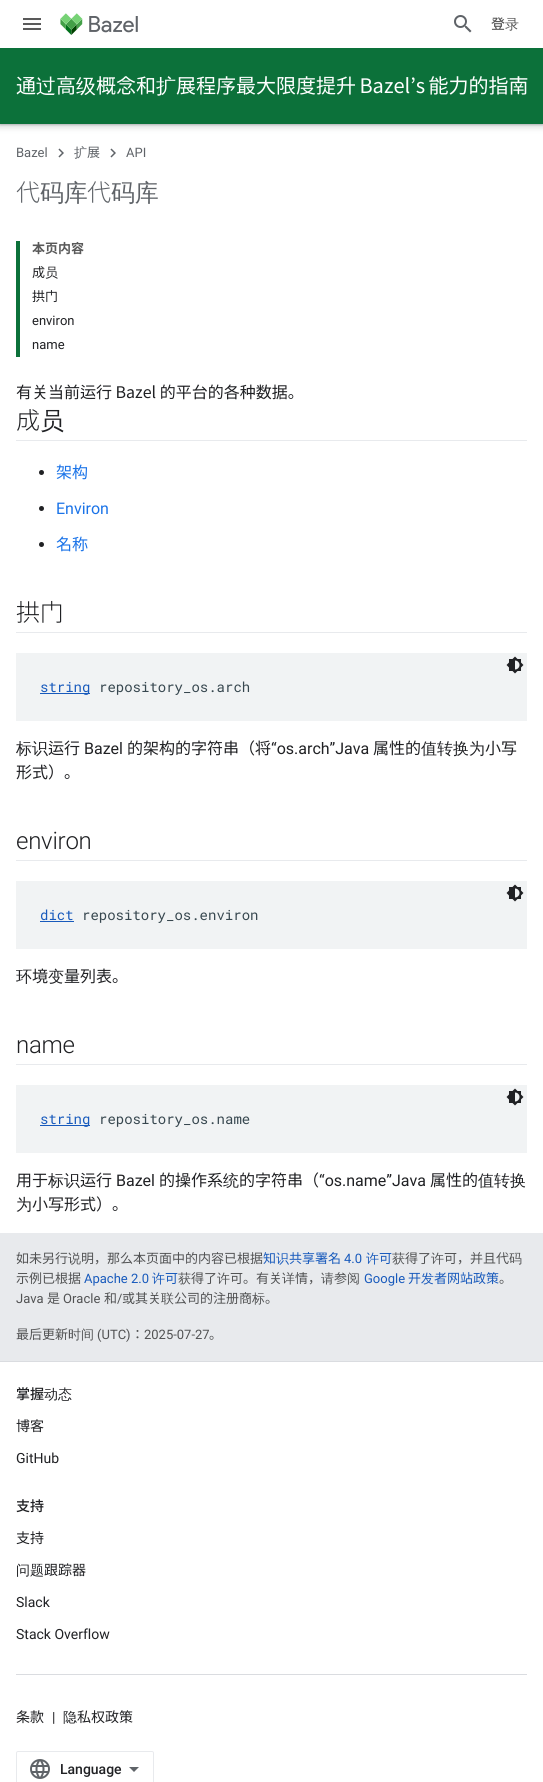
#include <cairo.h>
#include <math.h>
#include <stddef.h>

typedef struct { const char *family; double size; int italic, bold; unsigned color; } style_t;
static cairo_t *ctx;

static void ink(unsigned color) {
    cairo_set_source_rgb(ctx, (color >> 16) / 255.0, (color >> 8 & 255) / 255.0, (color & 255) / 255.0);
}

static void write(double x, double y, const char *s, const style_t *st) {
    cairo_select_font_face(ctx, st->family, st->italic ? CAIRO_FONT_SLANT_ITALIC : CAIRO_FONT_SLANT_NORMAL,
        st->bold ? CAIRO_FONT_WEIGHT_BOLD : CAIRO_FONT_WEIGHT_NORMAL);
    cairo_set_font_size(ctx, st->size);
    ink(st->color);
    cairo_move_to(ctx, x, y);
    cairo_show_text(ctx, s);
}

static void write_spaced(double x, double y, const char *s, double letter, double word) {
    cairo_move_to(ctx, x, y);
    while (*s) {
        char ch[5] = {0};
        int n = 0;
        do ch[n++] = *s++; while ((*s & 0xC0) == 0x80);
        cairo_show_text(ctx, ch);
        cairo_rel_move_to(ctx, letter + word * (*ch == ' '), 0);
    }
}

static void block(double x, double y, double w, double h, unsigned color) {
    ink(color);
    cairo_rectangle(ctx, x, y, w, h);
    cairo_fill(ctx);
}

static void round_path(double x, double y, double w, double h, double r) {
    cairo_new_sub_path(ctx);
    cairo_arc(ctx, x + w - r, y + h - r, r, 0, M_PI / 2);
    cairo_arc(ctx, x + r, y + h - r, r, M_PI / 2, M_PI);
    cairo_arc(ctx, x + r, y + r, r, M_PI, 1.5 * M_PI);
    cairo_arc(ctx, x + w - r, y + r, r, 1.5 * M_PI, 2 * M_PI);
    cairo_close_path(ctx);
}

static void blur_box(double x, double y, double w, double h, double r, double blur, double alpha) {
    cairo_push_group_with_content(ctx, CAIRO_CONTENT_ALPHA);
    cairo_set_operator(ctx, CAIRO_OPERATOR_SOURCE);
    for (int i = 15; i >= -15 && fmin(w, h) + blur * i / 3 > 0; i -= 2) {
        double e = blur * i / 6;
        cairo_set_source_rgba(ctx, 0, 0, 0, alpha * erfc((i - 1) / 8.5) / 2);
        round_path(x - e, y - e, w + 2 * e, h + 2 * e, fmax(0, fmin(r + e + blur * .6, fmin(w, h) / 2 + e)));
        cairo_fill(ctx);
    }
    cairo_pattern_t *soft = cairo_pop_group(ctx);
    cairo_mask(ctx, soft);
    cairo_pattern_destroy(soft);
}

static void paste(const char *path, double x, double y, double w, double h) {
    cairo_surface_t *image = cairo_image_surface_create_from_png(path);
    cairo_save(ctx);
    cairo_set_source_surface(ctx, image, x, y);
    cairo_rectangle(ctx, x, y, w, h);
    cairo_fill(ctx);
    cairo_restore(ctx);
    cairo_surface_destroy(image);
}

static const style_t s1 = {"Noto Sans JP Medium", 14, 0, 0, 0x595959};
static const style_t s2 = {"WenQuanYi Zen Hei Medium", 14, 0, 0, 0x595959};
static const style_t s3 = {"Noto Sans JP", 20, 0, 0, 0xffffff};
static const style_t s4 = {"WenQuanYi Zen Hei Medium", 20, 0, 0, 0xffffff};
static const style_t s5 = {"Roboto", 13, 0, 0, 0x5f6368};
static const style_t s6 = {"WenQuanYi Zen Hei Medium", 13, 0, 0, 0x5f6368};
static const style_t s7 = {"Noto Sans JP", 13, 0, 0, 0x5f6368};
static const style_t s8 = {"Noto Sans JP", 13, 0, 1, 0x595959};
static const style_t s9 = {"Noto Sans JP", 13, 0, 0, 0x202124};
static const style_t s10 = {"WenQuanYi Zen Hei Medium", 13, 0, 0, 0x202124};
static const style_t s11 = {"Roboto", 13, 0, 0, 0x202124};
static const style_t s12 = {"Noto Sans JP", 16, 0, 0, 0x202124};
static const style_t s13 = {"Noto Sans JP", 16, 0, 0, 0x1a73e8};
static const style_t s14 = {"Roboto", 16, 0, 0, 0x1a73e8};
static const style_t s15 = {"Roboto Mono", 14, 0, 0, 0x185abc};
static const style_t s16 = {"Roboto Mono", 14, 0, 0, 0x37474f};
static const style_t s17 = {"WenQuanYi Zen Hei Medium", 16, 0, 0, 0x202124};
static const style_t s18 = {"Roboto", 16, 0, 0, 0x202124};
static const style_t s19 = {"Noto Sans JP", 13, 0, 0, 0x515253};
static const style_t s20 = {"WenQuanYi Zen Hei Medium", 13, 0, 0, 0x515253};
static const style_t s21 = {"Noto Sans JP", 13, 0, 0, 0x185abc};
static const style_t s22 = {"WenQuanYi Zen Hei Medium", 13, 0, 0, 0x185abc};
static const style_t s23 = {"Roboto", 13, 0, 0, 0x185abc};
static const style_t s24 = {"Roboto", 13, 0, 0, 0x515253};
static const style_t s25 = {"Noto Sans JP Medium", 14, 0, 0, 0x202124};
static const style_t s26 = {"WenQuanYi Zen Hei Medium", 14, 0, 0, 0x202124};
static const style_t s27 = {"Noto Sans JP", 14, 0, 0, 0x202124};
static const style_t s28 = {"Roboto", 14, 0, 0, 0x202124};
static const style_t s29 = {"Roboto Medium", 14, 0, 0, 0x202124};

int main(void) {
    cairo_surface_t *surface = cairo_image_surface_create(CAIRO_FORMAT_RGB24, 543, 1782);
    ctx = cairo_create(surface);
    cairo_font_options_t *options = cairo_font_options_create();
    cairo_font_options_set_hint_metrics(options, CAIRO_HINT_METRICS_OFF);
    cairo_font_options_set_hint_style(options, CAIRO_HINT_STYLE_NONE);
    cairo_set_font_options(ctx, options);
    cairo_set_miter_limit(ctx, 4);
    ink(0xe8eaed);
    cairo_paint(ctx);
    block(0, 124, 543, 1109, 0xffffff);
    ink(0x3c4043);
    blur_box(-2, 48, 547, 80, 0, 3, 0.15);
    blur_box(0, 49, 543, 76, 0, 1, 0.3);
    block(0, 0, 543, 48, 0xffffff);
    paste("pic1.png", 23, 18, 18, 12);
    paste("pic2.png", 60, 13, 78, 22);
    paste("pic3.png", 454, 15, 18, 18);
    write(491, 29, "登", &s1);
    write(505, 29, "录", &s2);
    block(0, 48, 543, 76, 0x0c713a);
    write(16, 93, "通", &s3);
    write(36, 93, "过", &s4);
    write(56, 93, "高", &s3);
    write(76, 93, "级", &s4);
    write(96, 93, "概念和", &s3);
    write(156, 93, "扩", &s4);
    cairo_select_font_face(ctx, "Noto Sans JP", CAIRO_FONT_SLANT_NORMAL, CAIRO_FONT_WEIGHT_NORMAL);
    write_spaced(176, 93, "展程序最大限度提升 Bazel’s 能力的指南", 0, -1);
    write(16, 157, "Bazel", &s5);
    paste("pic4.png", 58, 148, 6, 10);
    write(74, 157, "扩", &s6);
    write(87, 157, "展", &s7);
    paste("pic4.png", 110, 148, 6, 10);
    write(126, 157, "API", &s5);
    cairo_select_font_face(ctx, "Noto Sans JP Light", CAIRO_FONT_SLANT_NORMAL, CAIRO_FONT_WEIGHT_NORMAL);
    cairo_set_font_size(ctx, 24);
    write_spaced(16, 201, "代", -0.25, 0);
    cairo_select_font_face(ctx, "WenQuanYi Zen Hei Medium", CAIRO_FONT_SLANT_NORMAL, CAIRO_FONT_WEIGHT_NORMAL);
    write_spaced(40, 201, "码库", -0.25, 0);
    cairo_select_font_face(ctx, "Noto Sans JP Light", CAIRO_FONT_SLANT_NORMAL, CAIRO_FONT_WEIGHT_NORMAL);
    write_spaced(87, 201, "代", -0.25, 0);
    cairo_select_font_face(ctx, "WenQuanYi Zen Hei Medium", CAIRO_FONT_SLANT_NORMAL, CAIRO_FONT_WEIGHT_NORMAL);
    write_spaced(111, 201, "码库", -0.25, 0);
    block(16, 241, 4, 116, 0x0c713a);
    write(32, 253, "本页内容", &s8);
    write(32, 277, "成", &s9);
    write(45, 277, "员", &s10);
    write(32, 301, "拱门", &s9);
    write(32, 325, "environ", &s11);
    write(32, 349, "name", &s11);
    write(16, 398, "有关当前运行 Bazel 的平台的各种数据。", &s12);
    block(16, 440, 511, 1, 0xe8eaed);
    cairo_select_font_face(ctx, "Noto Sans JP Light", CAIRO_FONT_SLANT_NORMAL, CAIRO_FONT_WEIGHT_NORMAL);
    cairo_set_font_size(ctx, 24);
    ink(0x202124);
    write_spaced(16, 429, "成", -0.25, 0);
    cairo_select_font_face(ctx, "WenQuanYi Zen Hei Medium", CAIRO_FONT_SLANT_NORMAL, CAIRO_FONT_WEIGHT_NORMAL);
    write_spaced(40, 429, "员", -0.25, 0);
    cairo_new_path(ctx);
    cairo_arc(ctx, 41.5, 472.5, 2.5, 0, 2 * M_PI);
    cairo_fill(ctx);
    write(56, 478, "架构", &s13);
    ink(0x202124);
    cairo_new_path(ctx);
    cairo_arc(ctx, 41.5, 508.5, 2.5, 0, 2 * M_PI);
    cairo_fill(ctx);
    write(56, 514, "Environ", &s14);
    ink(0x202124);
    cairo_new_path(ctx);
    cairo_arc(ctx, 41.5, 544.5, 2.5, 0, 2 * M_PI);
    cairo_fill(ctx);
    write(56, 550, "名称", &s13);
    block(16, 632, 511, 1, 0xe8eaed);
    cairo_select_font_face(ctx, "Noto Sans JP Light", CAIRO_FONT_SLANT_NORMAL, CAIRO_FONT_WEIGHT_NORMAL);
    cairo_set_font_size(ctx, 24);
    ink(0x202124);
    write_spaced(16, 621, "拱门", -0.25, 0);
    block(16, 653, 511, 68, 0xf1f3f4);
    paste("pic5.png", 506, 656, 18, 18);
    block(40, 693, 50, 1, 0x185abc);
    write(40, 692, "string", &s15);
    write(99, 692, "repository_os.arch", &s16);
    write(16, 754, "标识", &s17);
    write(48, 754, "运行", &s12);
    write(84, 754, "Bazel", &s18);
    write(127, 754, "的架构的字符串（将", &s12);
    write(271, 754, "“os.arch”Java", &s18);
    write(373, 754, "属性的", &s12);
    write(421, 754, "值转换为", &s17);
    write(485, 754, "小写", &s12);
    write(16, 778, "形式）。", &s12);
    block(16, 860, 511, 1, 0xe8eaed);
    cairo_select_font_face(ctx, "Roboto Light", CAIRO_FONT_SLANT_NORMAL, CAIRO_FONT_WEIGHT_NORMAL);
    cairo_set_font_size(ctx, 24);
    ink(0x202124);
    write_spaced(16, 849, "environ", -0.25, 0);
    block(16, 881, 511, 68, 0xf1f3f4);
    paste("pic5.png", 506, 884, 18, 18);
    write(40, 920, "dict", &s15);
    block(40, 921, 34, 1, 0x185abc);
    write(82, 920, "repository_os.environ", &s16);
    write(16, 982, "环", &s17);
    write(32, 982, "境", &s12);
    write(48, 982, "变", &s17);
    write(64, 982, "量列表。", &s12);
    block(16, 1064, 511, 1, 0xe8eaed);
    cairo_select_font_face(ctx, "Roboto Light", CAIRO_FONT_SLANT_NORMAL, CAIRO_FONT_WEIGHT_NORMAL);
    cairo_set_font_size(ctx, 24);
    ink(0x202124);
    write_spaced(16, 1053, "name", -0.25, 0);
    block(16, 1085, 511, 68, 0xf1f3f4);
    paste("pic5.png", 506, 1088, 18, 18);
    block(40, 1125, 50, 1, 0x185abc);
    write(40, 1124, "string", &s15);
    write(99, 1124, "repository_os.name", &s16);
    write(16, 1186, "用于", &s12);
    write(48, 1186, "标识", &s17);
    write(80, 1186, "运行", &s12);
    write(116, 1186, "Bazel", &s18);
    write(159, 1186, "的操作系", &s12);
    write(223, 1186, "统", &s17);
    write(239, 1186, "的字符串（", &s12);
    write(319, 1186, "“os.name”Java", &s18);
    write(430, 1186, "属性的", &s12);
    write(478, 1186, "值转换", &s17);
    write(16, 1210, "为", &s17);
    write(32, 1210, "小写形式）。", &s12);
    write(16, 1263, "如未另行", &s19);
    write(68, 1263, "说", &s20);
    write(81, 1263, "明，那么本页面中的内容已根据", &s19);
    write(263, 1263, "知", &s21);
    write(276, 1263, "识", &s22);
    write(289, 1263, "共享署名", &s21);
    write(344, 1263, "4.0", &s23);
    write(366, 1263, "许", &s22);
    write(379, 1263, "可", &s21);
    write(392, 1263, "获", &s20);
    write(405, 1263, "得了", &s19);
    write(431, 1263, "许", &s20);
    write(444, 1263, "可，并且代", &s19);
    write(509, 1263, "码", &s20);
    write(16, 1283, "示例已根据", &s19);
    write(84, 1283, "Apache 2.0", &s23);
    write(152, 1283, "许", &s22);
    write(165, 1283, "可", &s21);
    write(178, 1283, "获", &s20);
    write(191, 1283, "得了", &s19);
    write(217, 1283, "许", &s20);
    write(230, 1283, "可。有关", &s19);
    write(282, 1283, "详", &s20);
    write(295, 1283, "情，", &s19);
    write(321, 1283, "请", &s20);
    write(334, 1283, "参", &s19);
    write(347, 1283, "阅", &s20);
    write(364, 1283, "Google", &s23);
    write(408, 1283, "开", &s21);
    write(421, 1283, "发", &s22);
    write(434, 1283, "者网站政策", &s21);
    write(499, 1283, "。", &s19);
    write(16, 1303, "Java", &s24);
    write(47, 1303, "是", &s19);
    write(63, 1303, "Oracle", &s24);
    write(104, 1303, "和", &s19);
    write(117, 1303, "/", &s24);
    write(122, 1303, "或其关", &s19);
    write(161, 1303, "联", &s20);
    write(174, 1303, "公司的注册商", &s19);
    write(252, 1303, "标", &s20);
    write(265, 1303, "。", &s19);
    write(16, 1339, "最后更新", &s19);
    write(68, 1339, "时间", &s20);
    write(97, 1339, "(UTC)", &s24);
    write(131, 1339, "：", &s19);
    write(144, 1339, "2025-07-27", &s24);
    write(209, 1339, "。", &s19);
    block(0, 1361, 543, 1, 0xdadce0);
    block(0, 1362, 543, 420, 0xffffff);
    block(16, 1674, 511, 1, 0xdadce0);
    write(16, 1399, "掌握", &s25);
    write(44, 1399, "动态", &s26);
    write(16, 1431, "博客", &s27);
    write(16, 1463, "GitHub", &s28);
    write(16, 1511, "支持", &s25);
    write(16, 1543, "支持", &s27);
    write(16, 1575, "问题", &s26);
    write(44, 1575, "跟踪器", &s27);
    write(16, 1607, "Slack", &s28);
    write(16, 1639, "Stack Overflow", &s28);
    write(16, 1722, "条款", &s27);
    write(52, 1722, "|", &s28);
    write(63, 1722, "隐", &s26);
    write(77, 1722, "私权政策", &s27);
    round_path(16.5, 1751.5, 137, 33, 1.5);
    ink(0xe8eaed);
    cairo_set_line_width(ctx, 1);
    cairo_stroke(ctx);
    paste("pic6.png", 30, 1759, 20, 20);
    write(60, 1774, "Language", &s29);
    ink(0x5f6368);
    cairo_new_path(ctx);
    cairo_move_to(ctx, 134, 1772);
    cairo_line_to(ctx, 129, 1767);
    cairo_line_to(ctx, 139, 1767);
    cairo_close_path(ctx);
    cairo_fill(ctx);
    cairo_surface_write_to_png(surface, "screenshot.png");
    cairo_font_options_destroy(options);
    cairo_destroy(ctx);
    cairo_surface_destroy(surface);
    return 0;
}
